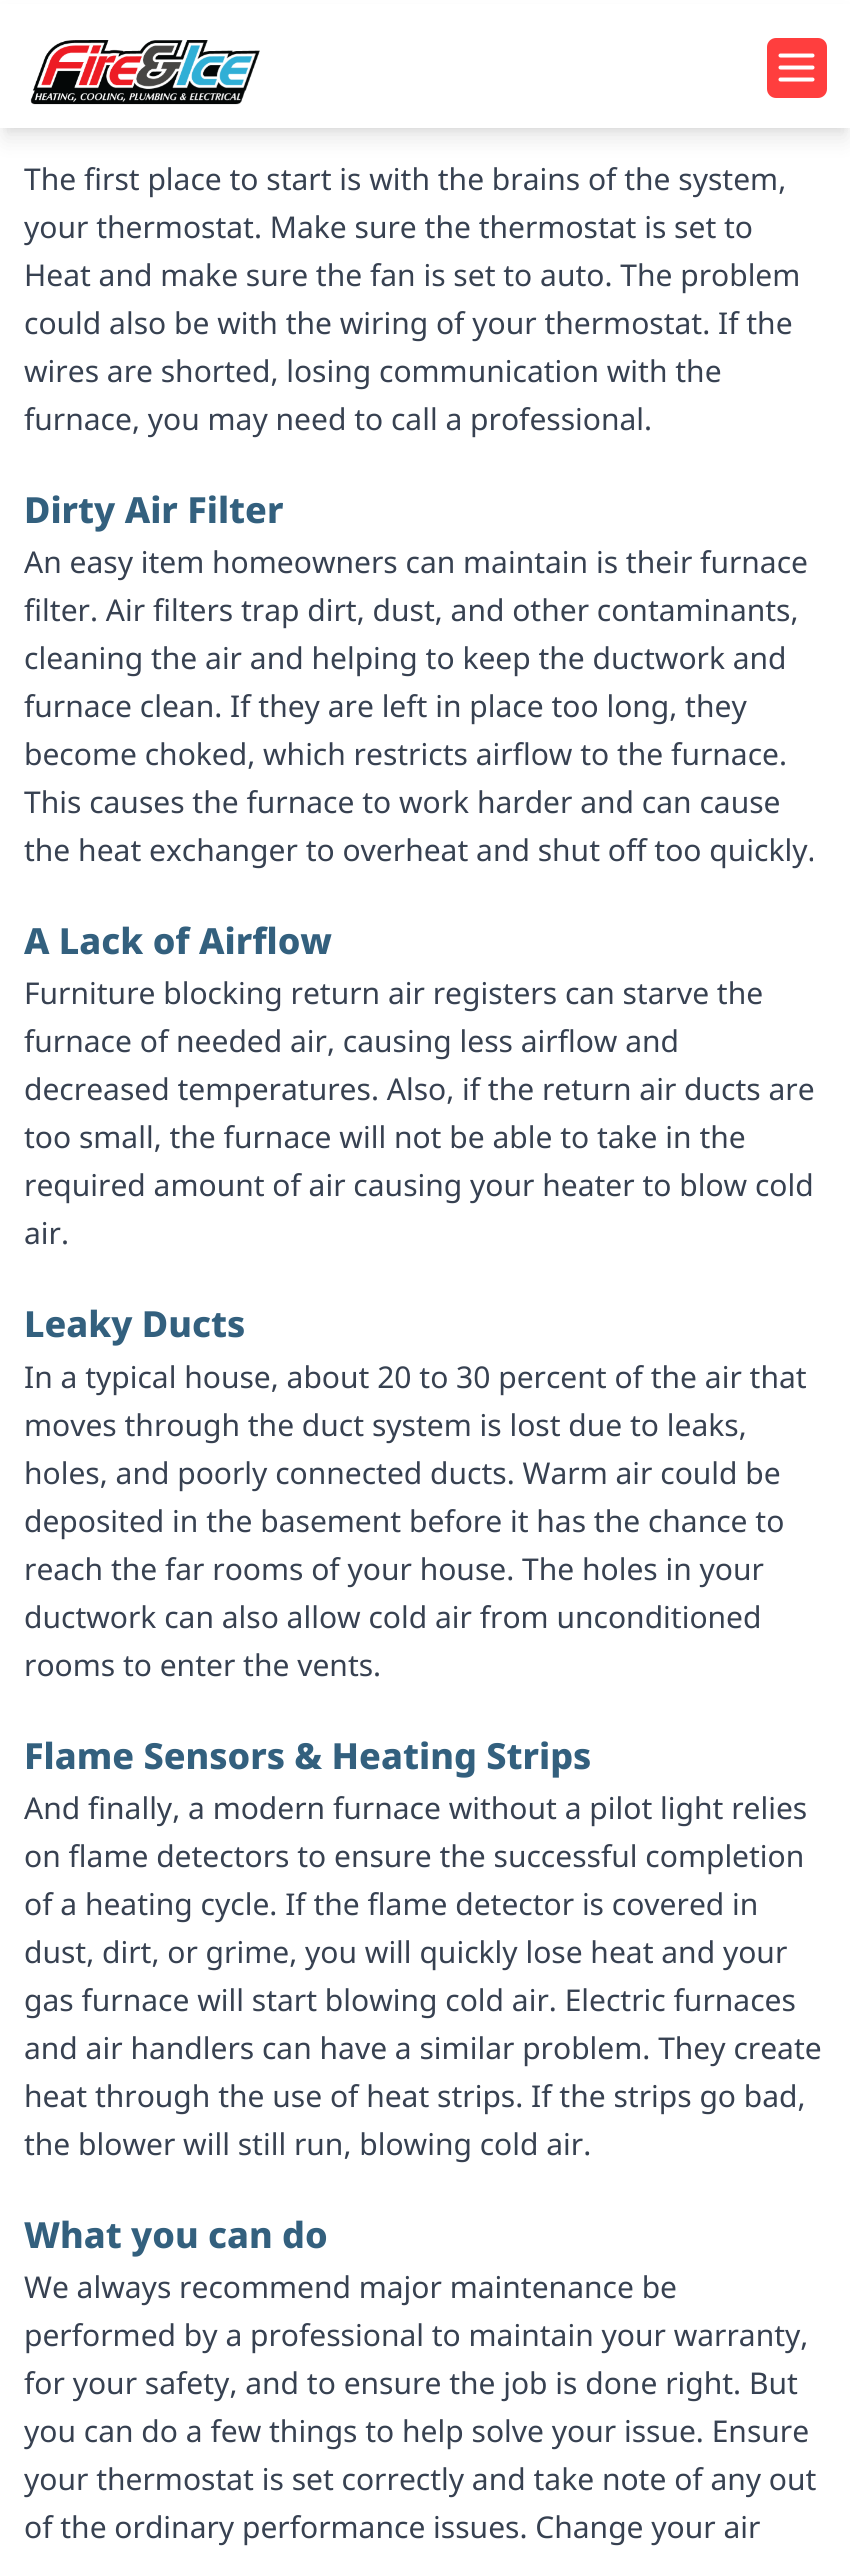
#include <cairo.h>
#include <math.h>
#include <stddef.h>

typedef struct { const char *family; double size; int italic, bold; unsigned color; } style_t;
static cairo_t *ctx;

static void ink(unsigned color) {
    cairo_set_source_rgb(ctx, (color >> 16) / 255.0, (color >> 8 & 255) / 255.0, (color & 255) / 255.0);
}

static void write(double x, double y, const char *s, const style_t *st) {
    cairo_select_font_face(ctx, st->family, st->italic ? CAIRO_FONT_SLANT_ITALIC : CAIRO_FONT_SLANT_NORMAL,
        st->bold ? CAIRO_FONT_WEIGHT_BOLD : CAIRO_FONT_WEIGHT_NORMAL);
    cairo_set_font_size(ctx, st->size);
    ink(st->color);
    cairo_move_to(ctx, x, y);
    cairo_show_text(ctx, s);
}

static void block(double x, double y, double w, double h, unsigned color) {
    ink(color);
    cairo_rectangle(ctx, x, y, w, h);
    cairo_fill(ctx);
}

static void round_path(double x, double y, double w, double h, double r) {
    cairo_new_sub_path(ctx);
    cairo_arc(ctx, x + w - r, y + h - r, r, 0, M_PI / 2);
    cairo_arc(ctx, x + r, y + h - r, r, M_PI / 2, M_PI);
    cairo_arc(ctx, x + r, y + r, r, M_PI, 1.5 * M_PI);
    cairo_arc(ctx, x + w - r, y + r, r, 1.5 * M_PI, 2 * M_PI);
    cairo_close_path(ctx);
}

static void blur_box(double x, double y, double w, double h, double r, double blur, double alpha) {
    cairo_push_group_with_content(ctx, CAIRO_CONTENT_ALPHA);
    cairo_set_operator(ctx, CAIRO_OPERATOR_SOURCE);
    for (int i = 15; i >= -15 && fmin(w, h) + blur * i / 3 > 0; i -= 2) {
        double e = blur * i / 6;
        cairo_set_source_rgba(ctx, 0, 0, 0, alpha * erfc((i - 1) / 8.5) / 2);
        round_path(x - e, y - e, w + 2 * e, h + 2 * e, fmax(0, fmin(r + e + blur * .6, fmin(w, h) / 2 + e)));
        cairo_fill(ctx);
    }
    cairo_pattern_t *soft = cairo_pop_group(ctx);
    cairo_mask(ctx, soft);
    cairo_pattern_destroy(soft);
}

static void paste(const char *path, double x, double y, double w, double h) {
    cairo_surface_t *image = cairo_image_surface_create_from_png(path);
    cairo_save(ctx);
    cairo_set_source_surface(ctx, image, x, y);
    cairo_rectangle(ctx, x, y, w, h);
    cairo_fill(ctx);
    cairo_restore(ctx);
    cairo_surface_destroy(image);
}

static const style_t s1 = {"Noto Sans", 30, 0, 0, 0x374151};
static const style_t s2 = {"Noto Sans ExtraBold", 36, 0, 0, 0x33607e};

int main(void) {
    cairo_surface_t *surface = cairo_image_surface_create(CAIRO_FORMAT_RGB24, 850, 2576);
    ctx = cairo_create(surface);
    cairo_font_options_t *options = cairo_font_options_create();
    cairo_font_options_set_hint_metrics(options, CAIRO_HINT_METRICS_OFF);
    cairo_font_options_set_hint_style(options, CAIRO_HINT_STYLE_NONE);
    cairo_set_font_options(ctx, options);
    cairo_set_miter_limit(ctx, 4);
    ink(0xffffff);
    cairo_paint(ctx);
    ink(0x000000);
    blur_box(6, 12, 839, 116, 0, 4.5, 0.1);
    blur_box(5, 20, 841, 118, 0, 11, 0.1);
    block(0, 4, 850, 124, 0xffffff);
    paste("pic1.png", 30, 40, 230, 65);
    ink(0xff3e3e);
    round_path(767, 38, 60, 60, 9);
    cairo_fill(ctx);
    cairo_new_path(ctx);
    cairo_move_to(ctx, 780.5, 55.5);
    cairo_line_to(ctx, 812.5, 55.5);
    cairo_move_to(ctx, 780.5, 67.5);
    cairo_line_to(ctx, 812.5, 67.5);
    cairo_move_to(ctx, 780.5, 79.5);
    cairo_line_to(ctx, 812.5, 79.5);
    ink(0xffffff);
    cairo_set_line_width(ctx, 4);
    cairo_set_line_cap(ctx, CAIRO_LINE_CAP_ROUND);
    cairo_set_line_join(ctx, CAIRO_LINE_JOIN_ROUND);
    cairo_stroke(ctx);
    write(24, 190, "The first place to start is with the brains of the system,", &s1);
    write(24, 238, "your thermostat. Make sure the thermostat is set to", &s1);
    write(24, 286, "Heat and make sure the fan is set to auto. The problem", &s1);
    write(24, 334, "could also be with the wiring of your thermostat. If the", &s1);
    write(24, 382, "wires are shorted, losing communication with the", &s1);
    write(24, 430, "furnace, you may need to call a professional.", &s1);
    write(24, 523, "Dirty Air Filter", &s2);
    write(24, 573, "An easy item homeowners can maintain is their furnace", &s1);
    write(24, 621, "filter. Air filters trap dirt, dust, and other contaminants,", &s1);
    write(24, 669, "cleaning the air and helping to keep the ductwork and", &s1);
    write(24, 717, "furnace clean. If they are left in place too long, they", &s1);
    write(24, 765, "become choked, which restricts airflow to the furnace.", &s1);
    write(24, 813, "This causes the furnace to work harder and can cause", &s1);
    write(24, 861, "the heat exchanger to overheat and shut off too quickly.", &s1);
    write(24, 954, "A Lack of Airflow", &s2);
    write(24, 1004, "Furniture blocking return air registers can starve the", &s1);
    write(24, 1052, "furnace of needed air, causing less airflow and", &s1);
    write(24, 1100, "decreased temperatures. Also, if the return air ducts are", &s1);
    write(24, 1148, "too small, the furnace will not be able to take in the", &s1);
    write(24, 1196, "required amount of air causing your heater to blow cold", &s1);
    write(24, 1244, "air.", &s1);
    write(24, 1337, "Leaky Ducts", &s2);
    write(24, 1388, "In a typical house, about 20 to 30 percent of the air that", &s1);
    write(24, 1436, "moves through the duct system is lost due to leaks,", &s1);
    write(24, 1484, "holes, and poorly connected ducts. Warm air could be", &s1);
    write(24, 1532, "deposited in the basement before it has the chance to", &s1);
    write(24, 1580, "reach the far rooms of your house. The holes in your", &s1);
    write(24, 1628, "ductwork can also allow cold air from unconditioned", &s1);
    write(24, 1676, "rooms to enter the vents.", &s1);
    write(24, 1769, "Flame Sensors & Heating Strips", &s2);
    write(24, 1819, "And finally, a modern furnace without a pilot light relies", &s1);
    write(24, 1867, "on flame detectors to ensure the successful completion", &s1);
    write(24, 1915, "of a heating cycle. If the flame detector is covered in", &s1);
    write(24, 1963, "dust, dirt, or grime, you will quickly lose heat and your", &s1);
    write(24, 2011, "gas furnace will start blowing cold air. Electric furnaces", &s1);
    write(24, 2059, "and air handlers can have a similar problem. They create", &s1);
    write(24, 2107, "heat through the use of heat strips. If the strips go bad,", &s1);
    write(24, 2155, "the blower will still run, blowing cold air.", &s1);
    write(24, 2248, "What you can do", &s2);
    write(24, 2298, "We always recommend major maintenance be", &s1);
    write(24, 2346, "performed by a professional to maintain your warranty,", &s1);
    write(24, 2394, "for your safety, and to ensure the job is done right. But", &s1);
    write(24, 2442, "you can do a few things to help solve your issue. Ensure", &s1);
    write(24, 2490, "your thermostat is set correctly and take note of any out", &s1);
    write(24, 2538, "of the ordinary performance issues. Change your air", &s1);
    cairo_surface_write_to_png(surface, "screenshot.png");
    cairo_font_options_destroy(options);
    cairo_destroy(ctx);
    cairo_surface_destroy(surface);
    return 0;
}
